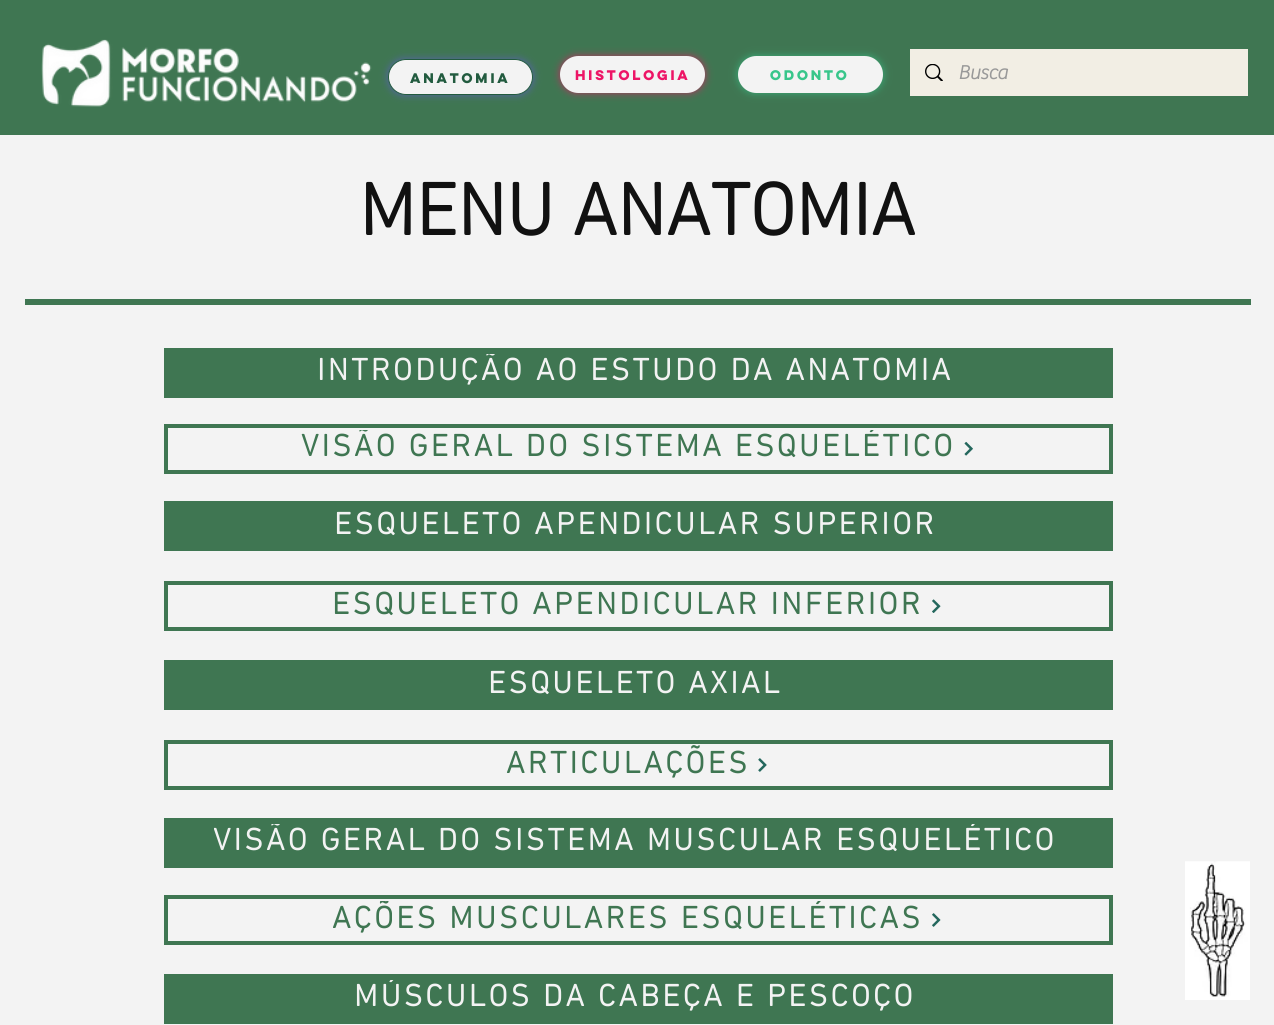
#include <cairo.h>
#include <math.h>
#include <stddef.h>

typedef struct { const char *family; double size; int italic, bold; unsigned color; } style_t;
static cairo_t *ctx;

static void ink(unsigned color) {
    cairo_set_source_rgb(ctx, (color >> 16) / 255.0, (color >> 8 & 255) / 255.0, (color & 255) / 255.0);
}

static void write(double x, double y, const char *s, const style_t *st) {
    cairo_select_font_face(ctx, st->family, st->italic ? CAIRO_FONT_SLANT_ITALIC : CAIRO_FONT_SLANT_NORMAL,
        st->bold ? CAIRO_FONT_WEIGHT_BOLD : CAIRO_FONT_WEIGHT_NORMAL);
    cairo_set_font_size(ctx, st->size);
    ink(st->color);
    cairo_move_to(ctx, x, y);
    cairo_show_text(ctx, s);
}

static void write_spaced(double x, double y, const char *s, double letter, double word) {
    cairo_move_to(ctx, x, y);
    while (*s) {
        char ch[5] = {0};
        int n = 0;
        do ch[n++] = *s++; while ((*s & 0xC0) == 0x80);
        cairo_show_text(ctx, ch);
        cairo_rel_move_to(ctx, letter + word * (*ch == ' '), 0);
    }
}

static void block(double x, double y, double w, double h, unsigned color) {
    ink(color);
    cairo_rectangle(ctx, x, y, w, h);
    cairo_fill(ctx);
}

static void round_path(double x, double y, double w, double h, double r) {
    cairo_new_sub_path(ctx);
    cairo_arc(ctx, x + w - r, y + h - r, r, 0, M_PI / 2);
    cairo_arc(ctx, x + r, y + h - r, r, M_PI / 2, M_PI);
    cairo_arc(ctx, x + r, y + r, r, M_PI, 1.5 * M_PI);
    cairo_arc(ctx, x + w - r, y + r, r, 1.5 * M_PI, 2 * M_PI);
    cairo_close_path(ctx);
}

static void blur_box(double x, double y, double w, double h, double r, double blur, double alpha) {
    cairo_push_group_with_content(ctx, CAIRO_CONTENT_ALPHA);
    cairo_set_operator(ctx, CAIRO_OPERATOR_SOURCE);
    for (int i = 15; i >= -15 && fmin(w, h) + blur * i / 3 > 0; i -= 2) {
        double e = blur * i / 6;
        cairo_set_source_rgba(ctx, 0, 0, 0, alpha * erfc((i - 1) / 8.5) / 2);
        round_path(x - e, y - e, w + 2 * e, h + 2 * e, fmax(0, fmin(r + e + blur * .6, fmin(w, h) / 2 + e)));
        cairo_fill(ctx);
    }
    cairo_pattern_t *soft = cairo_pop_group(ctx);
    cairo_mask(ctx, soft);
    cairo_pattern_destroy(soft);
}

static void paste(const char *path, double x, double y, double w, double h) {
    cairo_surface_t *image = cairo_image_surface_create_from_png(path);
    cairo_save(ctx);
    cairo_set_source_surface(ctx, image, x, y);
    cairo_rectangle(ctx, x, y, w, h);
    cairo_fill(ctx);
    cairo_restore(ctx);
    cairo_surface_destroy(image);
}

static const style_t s1 = {"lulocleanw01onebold", 12.5, 0, 1, 0x225b3f};
static const style_t s2 = {"lulocleanw01onebold", 12.5, 0, 1, 0xed1566};
static const style_t s3 = {"lulocleanw01onebold", 12.5, 0, 1, 0x38c68b};
static const style_t s4 = {"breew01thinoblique", 20, 0, 1, 0x999999};
static const style_t s5 = {"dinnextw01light", 75, 0, 1, 0x111111};

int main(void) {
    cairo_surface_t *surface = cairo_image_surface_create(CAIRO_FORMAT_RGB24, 1274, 1025);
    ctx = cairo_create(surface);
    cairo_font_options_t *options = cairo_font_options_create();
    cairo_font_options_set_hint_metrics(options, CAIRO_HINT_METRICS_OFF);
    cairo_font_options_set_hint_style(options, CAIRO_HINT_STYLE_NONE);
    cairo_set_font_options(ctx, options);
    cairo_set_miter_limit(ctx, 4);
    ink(0xf3f3f3);
    cairo_paint(ctx);
    block(0, 0, 1274, 135, 0x3f7652);
    paste("pic1.png", 41, 39, 331, 68);
    ink(0x5f5bcd);
    blur_box(388, 59, 145, 36, 18, 4, 0.7);
    ink(0xf3f3f3);
    round_path(388.5, 59.5, 144, 35, 17.5);
    cairo_fill_preserve(ctx);
    ink(0x225b3f);
    cairo_set_line_width(ctx, 1);
    cairo_stroke(ctx);
    write(410, 83, "ANATOMIA", &s1);
    ink(0xed1566);
    blur_box(560, 56, 145, 37, 18.5, 4, 0.7);
    ink(0xf3f3f3);
    round_path(560, 56, 145, 37, 18.5);
    cairo_fill(ctx);
    write(575, 80, "HISTOLOGIA", &s2);
    ink(0x38c68b);
    blur_box(738, 56, 145, 37, 18.5, 4, 0.7);
    ink(0xf3f3f3);
    round_path(738, 56, 145, 37, 18.5);
    cairo_fill(ctx);
    write(770, 80, "ODONTO", &s3);
    block(910, 49, 338, 47, 0xf2eee4);
    paste("pic2.png", 925, 64, 18, 17);
    write(958, 79, "Busca", &s4);
    write(359, 235, "MENU ANATOMIA", &s5);
    block(25, 299, 1226, 6, 0x3f7652);
    block(164, 348, 949, 50, 0x3f7652);
    cairo_save(ctx);
    cairo_rectangle(ctx, 318, 354, 636, 37);
    cairo_clip(ctx);
    cairo_set_font_size(ctx, 31.25);
    ink(0xf3f3f3);
    write_spaced(317, 380, "INTRODUÇÃO AO ESTUDO DA ANATOMIA", 3.1, 0);
    cairo_restore(ctx);
    cairo_rectangle(ctx, 166, 426, 945, 46);
    cairo_set_line_width(ctx, 4);
    cairo_stroke(ctx);
    cairo_save(ctx);
    cairo_rectangle(ctx, 300, 430, 656, 38);
    cairo_clip(ctx);
    cairo_set_font_size(ctx, 31.25);
    write_spaced(301, 456, "VISÃO GERAL DO SISTEMA ESQUELÉTICO", 3.1, 0);
    cairo_restore(ctx);
    paste("pic3.png", 964, 441, 9, 15);
    block(164, 501, 949, 50, 0x3f7652);
    cairo_set_font_size(ctx, 31.25);
    ink(0xf3f3f3);
    write_spaced(334, 534, "ESQUELETO APENDICULAR SUPERIOR", 3.1, 0);
    cairo_rectangle(ctx, 166, 583, 945, 46);
    ink(0x3f7652);
    cairo_stroke(ctx);
    write_spaced(332, 614, "ESQUELETO APENDICULAR INFERIOR", 3.1, 0);
    paste("pic4.png", 932, 599, 9, 14);
    block(164, 660, 949, 50, 0x3f7652);
    ink(0xf3f3f3);
    write_spaced(488, 693, "ESQUELETO AXIAL", 3.1, 0);
    cairo_rectangle(ctx, 166, 742, 945, 46);
    ink(0x3f7652);
    cairo_stroke(ctx);
    write_spaced(506, 773, "ARTICULAÇÕES", 3.1, 0);
    paste("pic5.png", 758, 758, 9, 14);
    block(164, 818, 949, 50, 0x3f7652);
    cairo_save(ctx);
    cairo_rectangle(ctx, 214, 824, 844, 37);
    cairo_clip(ctx);
    ink(0xf3f3f3);
    write_spaced(213, 850, "VISÃO GERAL DO SISTEMA MUSCULAR ESQUELÉTICO", 3.1, 0);
    cairo_restore(ctx);
    cairo_rectangle(ctx, 166, 897, 945, 46);
    cairo_stroke(ctx);
    cairo_save(ctx);
    cairo_rectangle(ctx, 333, 901, 591, 38);
    cairo_clip(ctx);
    write_spaced(332, 928, "AÇÕES MUSCULARES ESQUELÉTICAS", 3.1, 0);
    cairo_restore(ctx);
    paste("pic6.png", 932, 913, 9, 14);
    block(164, 974, 949, 50, 0x3f7652);
    cairo_save(ctx);
    cairo_rectangle(ctx, 355, 980, 561, 38);
    cairo_clip(ctx);
    ink(0xf3f3f3);
    write_spaced(354, 1006, "MÚSCULOS DA CABEÇA E PESCOÇO", 3.1, 0);
    cairo_restore(ctx);
    paste("pic7.png", 1185, 861, 65, 139);
    cairo_surface_write_to_png(surface, "screenshot.png");
    cairo_font_options_destroy(options);
    cairo_destroy(ctx);
    cairo_surface_destroy(surface);
    return 0;
}
